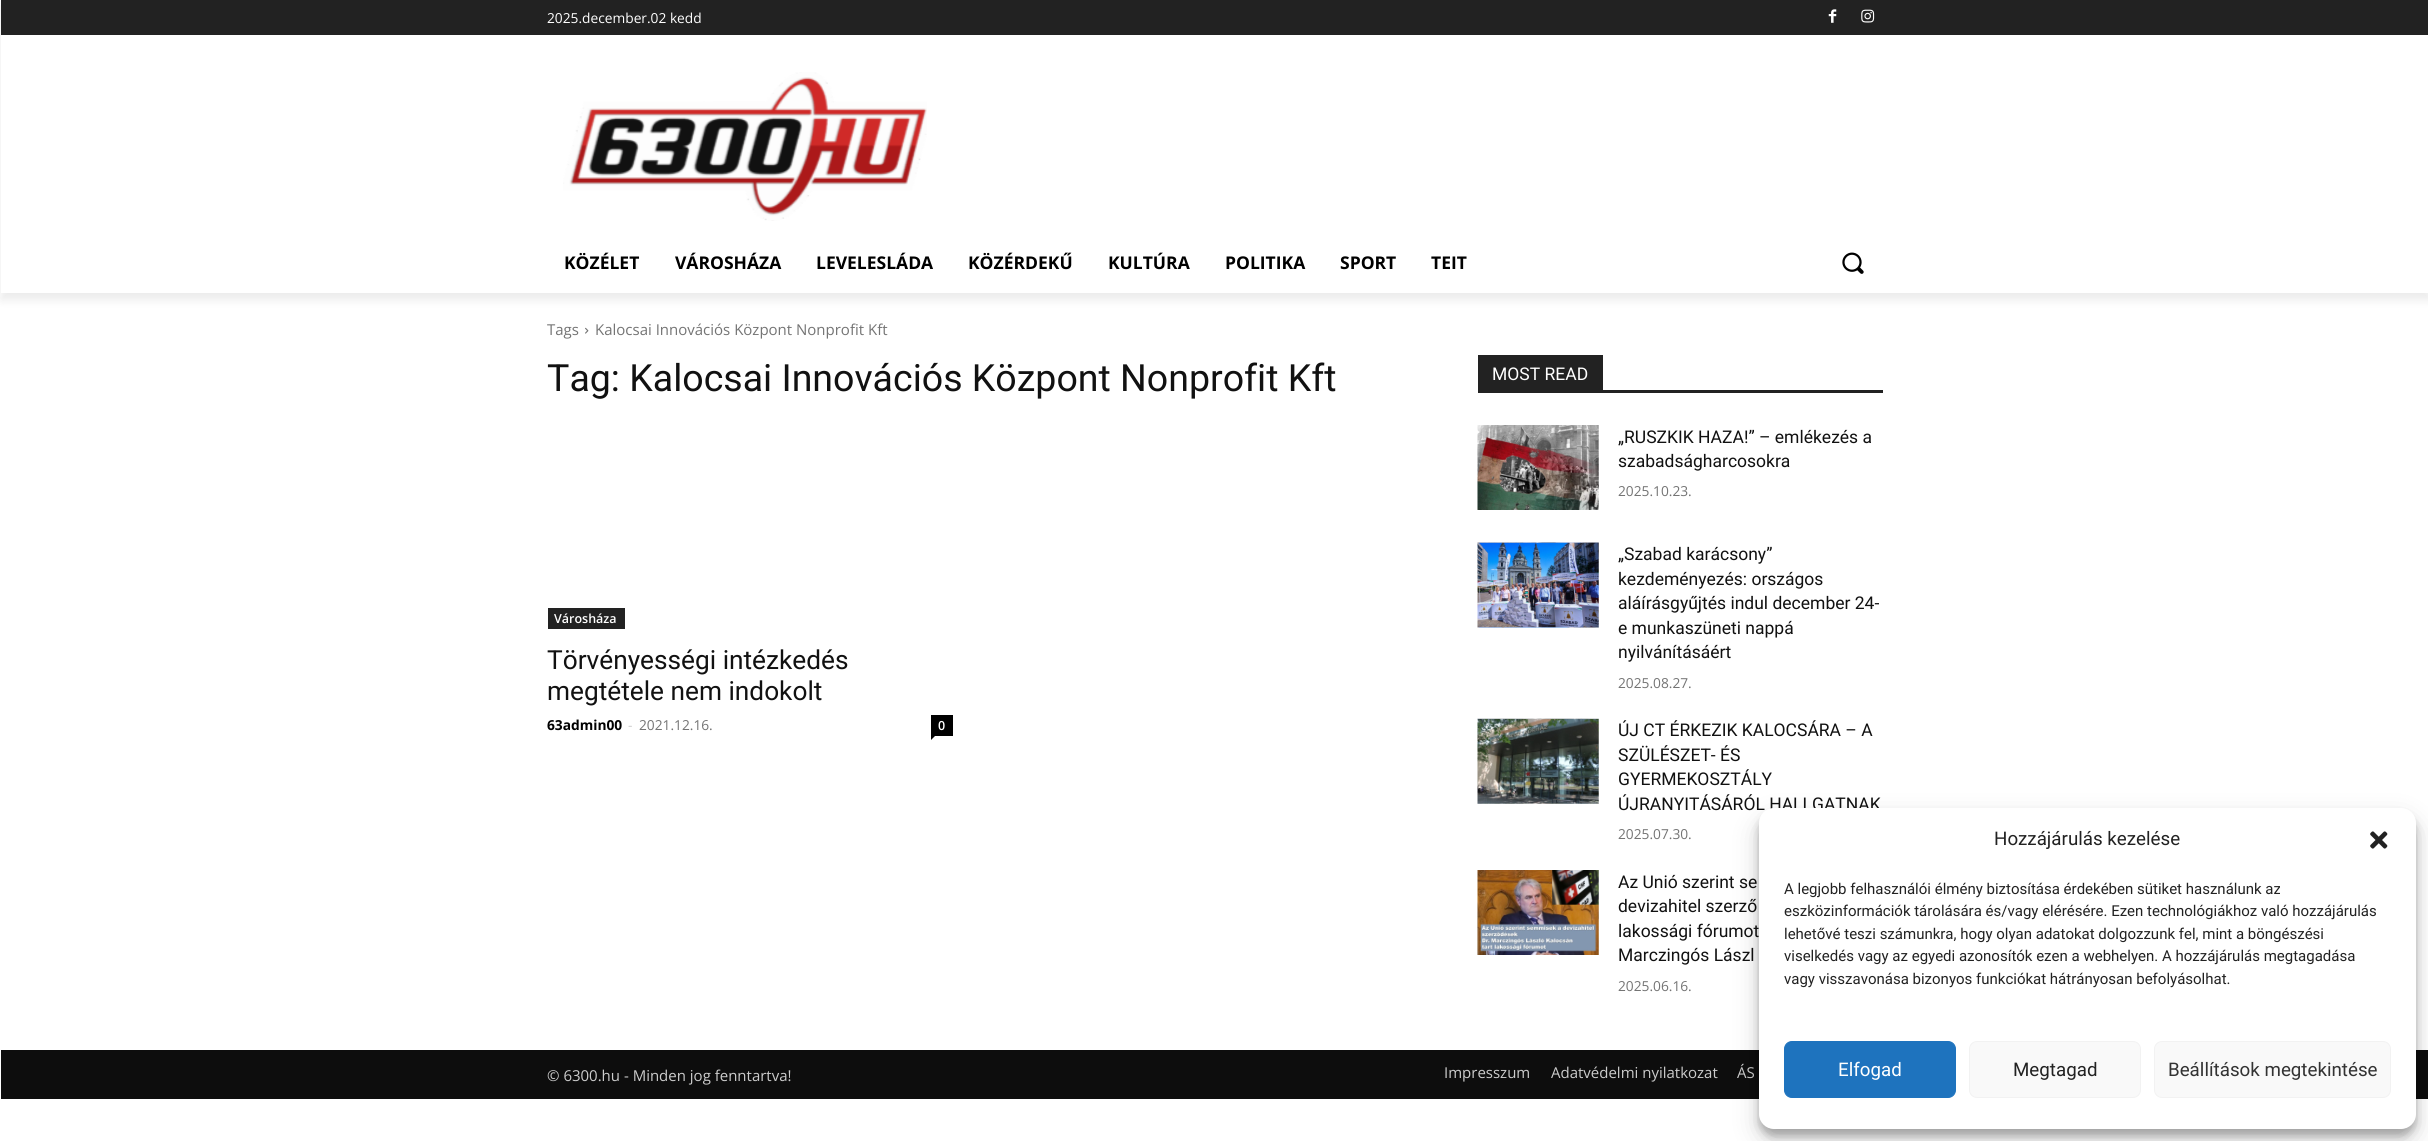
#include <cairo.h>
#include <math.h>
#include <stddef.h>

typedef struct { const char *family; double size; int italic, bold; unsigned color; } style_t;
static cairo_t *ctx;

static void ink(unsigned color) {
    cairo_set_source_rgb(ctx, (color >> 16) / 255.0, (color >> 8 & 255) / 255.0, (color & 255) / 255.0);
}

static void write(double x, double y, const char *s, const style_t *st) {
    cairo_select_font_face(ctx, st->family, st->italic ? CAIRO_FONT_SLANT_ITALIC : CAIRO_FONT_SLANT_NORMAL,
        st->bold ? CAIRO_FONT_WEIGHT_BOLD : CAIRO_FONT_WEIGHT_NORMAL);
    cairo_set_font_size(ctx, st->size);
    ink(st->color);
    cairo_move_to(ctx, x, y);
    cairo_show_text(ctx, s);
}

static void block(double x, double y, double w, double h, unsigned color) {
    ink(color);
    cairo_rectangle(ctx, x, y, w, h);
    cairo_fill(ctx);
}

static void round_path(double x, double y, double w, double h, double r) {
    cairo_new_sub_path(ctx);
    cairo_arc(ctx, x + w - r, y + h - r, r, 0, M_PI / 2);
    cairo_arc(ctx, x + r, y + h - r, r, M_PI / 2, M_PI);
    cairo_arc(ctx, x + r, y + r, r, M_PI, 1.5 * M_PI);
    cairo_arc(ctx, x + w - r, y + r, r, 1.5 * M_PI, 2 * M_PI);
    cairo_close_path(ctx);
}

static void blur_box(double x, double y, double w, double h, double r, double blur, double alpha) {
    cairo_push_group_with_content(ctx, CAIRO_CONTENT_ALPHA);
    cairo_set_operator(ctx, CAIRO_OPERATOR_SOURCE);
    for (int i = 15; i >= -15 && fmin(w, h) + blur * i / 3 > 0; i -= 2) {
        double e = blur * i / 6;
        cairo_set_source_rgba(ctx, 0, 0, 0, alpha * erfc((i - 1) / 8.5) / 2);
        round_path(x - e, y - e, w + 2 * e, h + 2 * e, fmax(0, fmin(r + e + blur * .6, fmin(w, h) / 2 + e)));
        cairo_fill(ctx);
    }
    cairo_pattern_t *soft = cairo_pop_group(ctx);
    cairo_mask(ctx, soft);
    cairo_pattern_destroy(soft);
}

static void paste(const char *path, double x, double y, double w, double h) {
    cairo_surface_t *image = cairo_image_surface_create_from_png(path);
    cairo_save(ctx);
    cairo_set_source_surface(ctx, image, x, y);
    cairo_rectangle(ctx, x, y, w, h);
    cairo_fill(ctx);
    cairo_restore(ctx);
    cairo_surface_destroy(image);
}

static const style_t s1 = {"Open Sans", 13.75, 0, 0, 0xffffff};
static const style_t s2 = {"Open Sans", 17.5, 0, 1, 0x000000};
static const style_t s3 = {"Open Sans", 15, 0, 0, 0x747474};
static const style_t s4 = {"Roboto", 37.5, 0, 0, 0x111111};
static const style_t s5 = {"Open Sans SemiBold", 12.5, 0, 0, 0xffffff};
static const style_t s6 = {"Roboto", 26.25, 0, 0, 0x111111};
static const style_t s7 = {"Open Sans", 13.75, 0, 1, 0x000000};
static const style_t s8 = {"Open Sans", 13.75, 0, 0, 0xcccccc};
static const style_t s9 = {"Open Sans", 13.75, 0, 0, 0x747474};
static const style_t s10 = {"Roboto", 17.5, 0, 0, 0xffffff};
static const style_t s11 = {"Roboto", 17.5, 0, 0, 0x111111};
static const style_t s12 = {"Open Sans", 15, 0, 0, 0xcccccc};
static const style_t s13 = {"Roboto", 18.75, 0, 0, 0x222222};
static const style_t s14 = {"Roboto", 15, 0, 0, 0x222222};
static const style_t s15 = {"Roboto", 18.75, 0, 0, 0xffffff};
static const style_t s16 = {"Roboto", 18.75, 0, 0, 0x333333};

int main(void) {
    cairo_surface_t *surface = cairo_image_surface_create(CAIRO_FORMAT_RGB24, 2428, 1141);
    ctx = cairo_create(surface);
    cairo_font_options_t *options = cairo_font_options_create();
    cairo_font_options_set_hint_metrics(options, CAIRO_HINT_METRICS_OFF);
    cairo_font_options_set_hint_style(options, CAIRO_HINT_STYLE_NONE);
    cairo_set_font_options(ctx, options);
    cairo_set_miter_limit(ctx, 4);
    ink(0xffffff);
    cairo_paint(ctx);
    block(1, 0, 2427, 35, 0x222222);
    paste("pic1.png", 1828, 9, 9, 14);
    paste("pic2.png", 1861, 9, 14, 14);
    paste("pic3.png", 563, 72, 364, 149);
    cairo_save(ctx);
    cairo_set_fill_rule(ctx, CAIRO_FILL_RULE_EVEN_ODD);
    cairo_new_path(ctx);
    cairo_move_to(ctx, 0, 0);
    cairo_line_to(ctx, 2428, 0);
    cairo_line_to(ctx, 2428, 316);
    cairo_line_to(ctx, 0, 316);
    cairo_close_path(ctx);
    cairo_move_to(ctx, 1, 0);
    cairo_line_to(ctx, 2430, 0);
    cairo_line_to(ctx, 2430, 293);
    cairo_line_to(ctx, 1, 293);
    cairo_close_path(ctx);
    cairo_clip(ctx);
    ink(0x000000);
    blur_box(1, 8, 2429, 292, 0, 5, 0.08);
    cairo_restore(ctx);
    write(547, 23, "2025.december.02 kedd", &s1);
    write(564, 269, "KÖZÉLET", &s2);
    write(675, 269, "VÁROSHÁZA", &s2);
    write(816, 269, "LEVELESLÁDA", &s2);
    write(968, 269, "KÖZÉRDEKŰ", &s2);
    write(1108, 269, "KULTÚRA", &s2);
    write(1225, 269, "POLITIKA", &s2);
    write(1340, 269, "SPORT", &s2);
    write(1431, 269, "TEIT", &s2);
    paste("pic4.png", 1842, 252, 22, 22);
    write(547, 335, "Tags", &s3);
    paste("pic5.png", 585, 327, 4, 7);
    write(595, 335, "Kalocsai Innovációs Központ Nonprofit Kft", &s3);
    write(547, 391, "Tag: Kalocsai Innovációs Központ Nonprofit Kft", &s4);
    block(548, 608, 77, 21, 0x222222);
    write(554, 623, "Városháza", &s5);
    write(547, 669, "Törvényességi intézkedés", &s6);
    write(547, 700, "megtétele nem indokolt", &s6);
    write(547, 730, "63admin00", &s7);
    write(628, 730, "-", &s8);
    write(639, 730, "2021.12.16.", &s9);
    block(931, 715, 22, 21, 0x000000);
    write(938, 730, "0", &s5);
    ink(0x000000);
    cairo_new_path(ctx);
    cairo_move_to(ctx, 931, 736);
    cairo_line_to(ctx, 935, 736);
    cairo_line_to(ctx, 931, 740);
    cairo_close_path(ctx);
    cairo_fill(ctx);
    block(1478, 390, 405, 3, 0x222222);
    block(1478, 355, 125, 35, 0x222222);
    write(1492, 380, "MOST READ", &s10);
    paste("pic6.png", 1477, 425, 122, 85);
    write(1618, 443, "„RUSZKIK HAZA!” – emlékezés a", &s11);
    write(1618, 467, "szabadságharcosokra", &s11);
    write(1618, 496, "2025.10.23.", &s9);
    paste("pic7.png", 1477, 542, 122, 86);
    write(1618, 560, "„Szabad karácsony”", &s11);
    write(1618, 585, "kezdeményezés: országos", &s11);
    write(1618, 609, "aláírásgyűjtés indul december 24-", &s11);
    write(1618, 634, "e munkaszüneti nappá", &s11);
    write(1618, 658, "nyilvánításáért", &s11);
    write(1618, 688, "2025.08.27.", &s9);
    paste("pic8.png", 1477, 718, 122, 86);
    write(1618, 736, "ÚJ CT ÉRKEZIK KALOCSÁRA – A", &s11);
    write(1618, 761, "SZÜLÉSZET- ÉS", &s11);
    write(1618, 785, "GYERMEKOSZTÁLY", &s11);
    write(1618, 810, "ÚJRANYITÁSÁRÓL HALLGATNAK", &s11);
    write(1618, 839, "2025.07.30.", &s9);
    paste("pic9.png", 1477, 870, 122, 85);
    write(1618, 888, "Az Unió szerint se", &s11);
    write(1618, 912, "devizahitel szerző", &s11);
    write(1618, 937, "lakossági fórumot", &s11);
    write(1618, 961, "Marczingós Lászl", &s11);
    write(1618, 991, "2025.06.16.", &s9);
    block(1, 1050, 2427, 49, 0x0d0d0d);
    write(547, 1081, "© 6300.hu - Minden jog fenntartva!", &s12);
    write(1444, 1078, "Impresszum", &s12);
    write(1551, 1078, "Adatvédelmi nyilatkozat", &s12);
    write(1737, 1078, "ÁS", &s12);
    ink(0x000000);
    blur_box(1759, 815, 657, 321, 15, 4, 0.23);
    blur_box(1759, 820, 657, 321, 15, 12.5, 0.19);
    ink(0xffffff);
    round_path(1759, 808, 657, 321, 15);
    cairo_fill(ctx);
    write(1994, 845, "Hozzájárulás kezelése", &s13);
    paste("pic10.png", 2370, 831, 18, 18);
    write(1784, 894, "A legjobb felhasználói élmény biztosítása érdekében sütiket használunk az", &s14);
    write(1784, 916, "eszközinformációk tárolására és/vagy elérésére. Ezen technológiákhoz való hozzájárulás", &s14);
    write(1784, 939, "lehetővé teszi számunkra, hogy olyan adatokat dolgozzunk fel, mint a böngészési", &s14);
    write(1784, 961, "viselkedés vagy az egyedi azonosítók ezen a webhelyen. A hozzájárulás megtagadása", &s14);
    write(1784, 984, "vagy visszavonása bizonyos funkciókat hátrányosan befolyásolhat.", &s14);
    ink(0x1e73be);
    round_path(1784.5, 1041.5, 171, 56, 7.5);
    cairo_fill_preserve(ctx);
    cairo_set_line_width(ctx, 1);
    cairo_stroke(ctx);
    write(1838, 1076, "Elfogad", &s15);
    ink(0xf9f9f9);
    round_path(1969.5, 1041.5, 171, 56, 7.5);
    cairo_fill_preserve(ctx);
    ink(0xf2f2f2);
    cairo_stroke(ctx);
    write(2013, 1076, "Megtagad", &s13);
    ink(0xf9f9f9);
    round_path(2154.5, 1041.5, 236, 56, 7.5);
    cairo_fill_preserve(ctx);
    ink(0xf2f2f2);
    cairo_stroke(ctx);
    write(2168, 1076, "Beállítások megtekintése", &s16);
    cairo_surface_write_to_png(surface, "screenshot.png");
    cairo_font_options_destroy(options);
    cairo_destroy(ctx);
    cairo_surface_destroy(surface);
    return 0;
}
